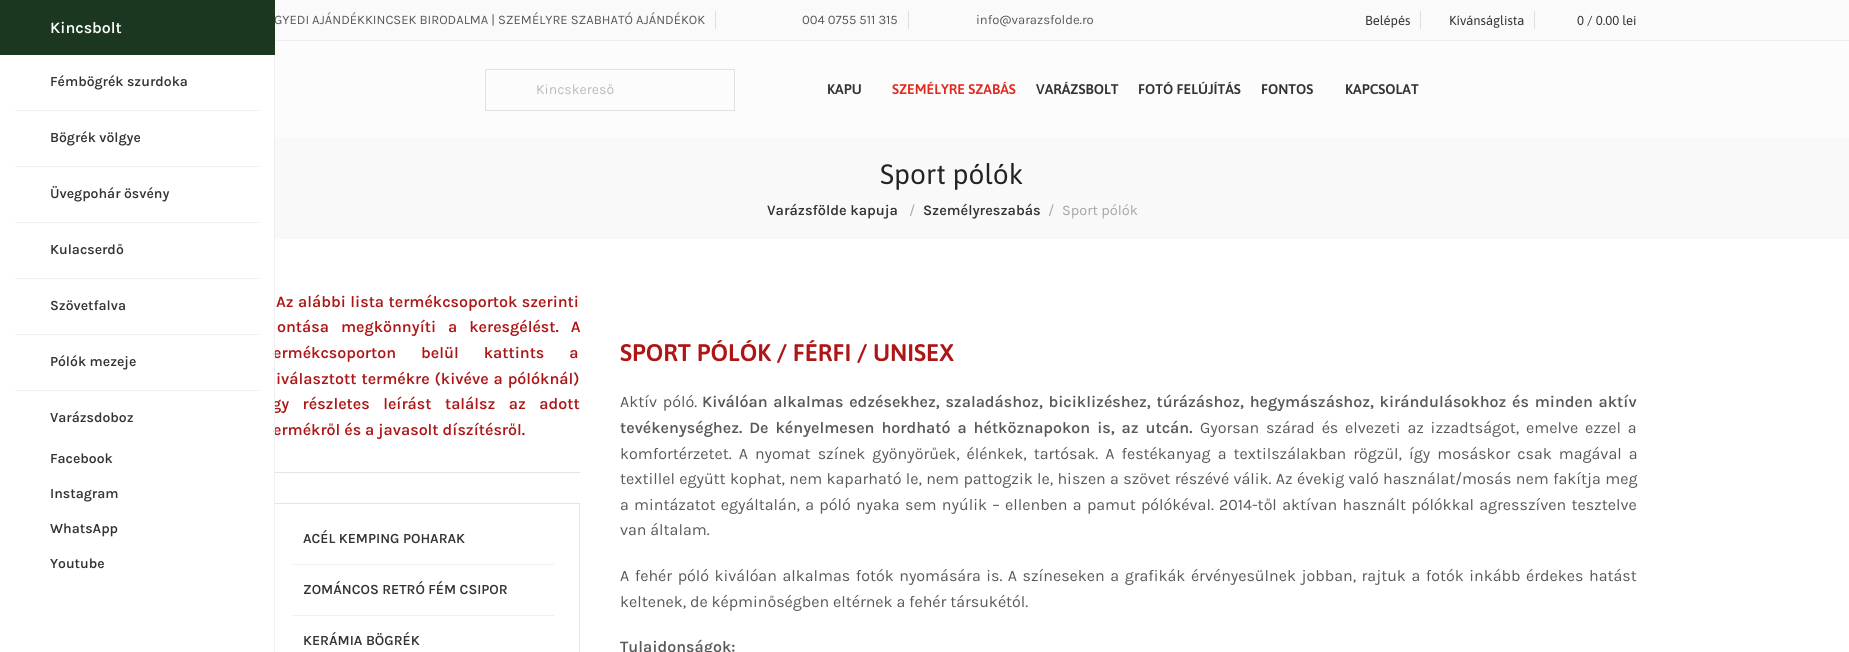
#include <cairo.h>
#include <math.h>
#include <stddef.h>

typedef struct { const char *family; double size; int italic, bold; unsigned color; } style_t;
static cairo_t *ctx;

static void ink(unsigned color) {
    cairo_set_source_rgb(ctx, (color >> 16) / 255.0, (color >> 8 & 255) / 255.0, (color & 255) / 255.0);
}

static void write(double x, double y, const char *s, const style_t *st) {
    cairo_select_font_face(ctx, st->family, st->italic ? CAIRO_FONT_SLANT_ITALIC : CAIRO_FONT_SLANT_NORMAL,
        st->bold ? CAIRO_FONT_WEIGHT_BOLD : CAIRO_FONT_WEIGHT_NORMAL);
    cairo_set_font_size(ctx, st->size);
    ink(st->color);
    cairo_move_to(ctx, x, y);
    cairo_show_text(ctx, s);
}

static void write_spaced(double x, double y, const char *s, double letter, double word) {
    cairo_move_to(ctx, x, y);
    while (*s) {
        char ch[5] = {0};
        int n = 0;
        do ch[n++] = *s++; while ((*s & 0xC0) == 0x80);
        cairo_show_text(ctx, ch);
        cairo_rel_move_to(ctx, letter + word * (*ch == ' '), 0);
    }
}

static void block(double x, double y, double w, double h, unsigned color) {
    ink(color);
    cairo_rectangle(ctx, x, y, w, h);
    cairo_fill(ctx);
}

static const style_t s1 = {"Karla SemiBold", 16, 0, 0, 0xad1616};
static const style_t s2 = {"Karla", 13, 0, 0, 0x585858};
static const style_t s3 = {"Karla SemiBold", 16, 0, 0, 0xffffff};
static const style_t s4 = {"Karla SemiBold", 14, 0, 0, 0x333333};
static const style_t s5 = {"Asap", 13, 0, 0, 0x333333};
static const style_t s6 = {"Karla", 14, 0, 0, 0xbbbbbb};
static const style_t s7 = {"Asap SemiBold", 14, 0, 0, 0x333333};
static const style_t s8 = {"Asap SemiBold", 14, 0, 0, 0xe02b20};
static const style_t s9 = {"Asap", 28, 0, 0, 0x242424};
static const style_t s10 = {"Karla SemiBold", 14.5, 0, 0, 0x333333};
static const style_t s11 = {"Karla", 14.5, 0, 0, 0xa5a5a5};
static const style_t s12 = {"Asap SemiBold", 24, 0, 0, 0xad1616};
static const style_t s13 = {"Karla", 16, 0, 0, 0x585858};
static const style_t s14 = {"Karla SemiBold", 16, 0, 0, 0x585858};

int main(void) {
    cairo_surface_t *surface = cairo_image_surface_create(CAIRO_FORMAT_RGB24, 1849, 652);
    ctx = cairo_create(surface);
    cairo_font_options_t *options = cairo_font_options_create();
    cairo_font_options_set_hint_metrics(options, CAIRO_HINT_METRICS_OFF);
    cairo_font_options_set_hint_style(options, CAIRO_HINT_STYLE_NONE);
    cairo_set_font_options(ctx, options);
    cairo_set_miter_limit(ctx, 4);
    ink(0xffffff);
    cairo_paint(ctx);
    block(267, 472, 313, 1, 0xe4e4e4);
    cairo_select_font_face(ctx, "Karla SemiBold", CAIRO_FONT_SLANT_NORMAL, CAIRO_FONT_WEIGHT_NORMAL);
    cairo_set_font_size(ctx, 16);
    ink(0xad1616);
    write_spaced(272, 409, "gy részletes leírást találsz az adott", 0, 9.5);
    cairo_rectangle(ctx, 267.5, 503.5, 312, 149);
    ink(0xe4e4e4);
    cairo_set_line_width(ctx, 1);
    cairo_stroke(ctx);
    block(267, 402, 7, 250, 0xffffff);
    ink(0xad1616);
    write_spaced(273, 358, "ermékcsoporton belül kattints a", 0, 21);
    write(273, 435, "ermékről és a javasolt díszítésről.", &s1);
    block(274, 55, 1, 597, 0xefefef);
    block(275, 0, 1574, 40, 0xfafafa);
    write(274, 24, "GYEDI AJÁNDÉKKINCSEK BIRODALMA | SZEMÉLYRE SZABHATÓ AJÁNDÉKOK", &s2);
    block(0, 0, 275, 55, 0x1c371f);
    write(50, 33, "Kincsbolt", &s3);
    write(50, 86, "Fémbögrék szurdoka", &s4);
    block(15, 110, 244, 1, 0xefefef);
    write(50, 142, "Bögrék völgye", &s4);
    block(15, 166, 244, 1, 0xefefef);
    write(50, 198, "Üvegpohár ösvény", &s4);
    block(15, 222, 244, 1, 0xefefef);
    write(50, 254, "Kulacserdő", &s4);
    block(15, 278, 244, 1, 0xefefef);
    write(50, 310, "Szövetfalva", &s4);
    block(15, 334, 244, 1, 0xefefef);
    write(50, 366, "Pólók mezeje", &s4);
    block(15, 390, 244, 1, 0xefefef);
    write(50, 422, "Varázsdoboz", &s4);
    write(50, 463, "Facebook", &s4);
    write(50, 498, "Instagram", &s4);
    write(50, 533, "WhatsApp", &s4);
    write(50, 568, "Youtube", &s4);
    block(275, 41, 1574, 97, 0xfcfcfc);
    block(275, 40, 1574, 1, 0xededed);
    block(715, 11, 1, 18, 0xe0e0e0);
    write(802, 24, "004 0755 511 315", &s2);
    block(908, 11, 1, 18, 0xe0e0e0);
    write(976, 24, "info@varazsfolde.ro", &s2);
    write(1365, 25, "Belépés", &s5);
    block(1420, 11, 1, 18, 0xe0e0e0);
    write(1449, 25, "Kívánságlista", &s5);
    block(1534, 11, 1, 18, 0xe0e0e0);
    write(1577, 25, "0 / 0.00 lei", &s5);
    cairo_rectangle(ctx, 485.5, 69.5, 249, 41);
    ink(0xe1e1e1);
    cairo_stroke(ctx);
    write(536, 94, "Kincskereső", &s6);
    write(827, 94, "KAPU", &s7);
    write(892, 94, "SZEMÉLYRE SZABÁS", &s8);
    write(1036, 94, "VARÁZSBOLT", &s7);
    write(1138, 94, "FOTÓ FELÚJÍTÁS", &s7);
    write(1261, 94, "FONTOS", &s7);
    write(1345, 94, "KAPCSOLAT", &s7);
    block(275, 138, 1574, 101, 0xf9f9f9);
    write(880, 184, "Sport pólók", &s9);
    write(767, 215, "Varázsfölde kapuja", &s10);
    write(909, 215, "/", &s11);
    write(923, 215, "Személyreszabás", &s10);
    write(1048, 215, "/", &s11);
    write(1062, 215, "Sport pólók", &s11);
    cairo_select_font_face(ctx, "Karla SemiBold", CAIRO_FONT_SLANT_NORMAL, CAIRO_FONT_WEIGHT_NORMAL);
    cairo_set_font_size(ctx, 16);
    ink(0xad1616);
    write_spaced(276, 307, "Az alábbi lista termékcsoportok szerinti", 0, 0.5);
    write_spaced(277, 332, "ontása megkönnyíti a keresgélést. A", 0, 8);
    write_spaced(276, 384, "iválasztott termékre (kivéve a pólóknál)", 0, 1);
    write(303, 543, "ACÉL KEMPING POHARAK", &s4);
    block(293, 564, 261, 1, 0xefefef);
    write(303, 594, "ZOMÁNCOS RETRÓ FÉM CSIPOR", &s4);
    block(293, 615, 261, 1, 0xefefef);
    write(303, 645, "KERÁMIA BÖGRÉK", &s4);
    write(620, 361, "SPORT PÓLÓK / FÉRFI / UNISEX", &s12);
    cairo_select_font_face(ctx, "Karla", CAIRO_FONT_SLANT_NORMAL, CAIRO_FONT_WEIGHT_NORMAL);
    cairo_set_font_size(ctx, 16);
    ink(0x585858);
    write_spaced(620, 407, "Aktív póló.", 0, 2);
    cairo_select_font_face(ctx, "Karla SemiBold", CAIRO_FONT_SLANT_NORMAL, CAIRO_FONT_WEIGHT_NORMAL);
    write_spaced(702, 407, "Kiválóan alkalmas edzésekhez, szaladáshoz, biciklizéshez, túrázáshoz, hegymászáshoz, kirándulásokhoz és minden aktív", 0, 1.75);
    write_spaced(620, 433, "tevékenységhez. De kényelmesen hordható a hétköznapokon is, az utcán.", 0, 3);
    cairo_select_font_face(ctx, "Karla", CAIRO_FONT_SLANT_NORMAL, CAIRO_FONT_WEIGHT_NORMAL);
    write_spaced(1200, 433, "Gyorsan szárad és elvezeti az izzadtságot, emelve ezzel a", 0, 3);
    write_spaced(620, 459, "komfortérzetet. A nyomat színek gyönyörűek, élénkek, tartósak. A festékanyag a textilszálakban rögzül, így mosáskor csak magával a", 0, 3.25);
    write_spaced(620, 484, "textillel együtt kophat, nem kaparható le, nem pattogzik le, hiszen a szövet részévé válik. Az évekig való használat/mosás nem fakítja meg", 0, 0.55);
    write_spaced(620, 510, "a mintázatot egyáltalán, a póló nyaka sem nyúlik – ellenben a pamut pólókéval. 2014-től aktívan használt pólókkal agresszíven tesztelve", 0, 1.5);
    write(620, 535, "van általam.", &s13);
    write_spaced(620, 581, "A fehér póló kiválóan alkalmas fotók nyomására is. A színeseken a grafikák érvényesülnek jobban, rajtuk a fotók inkább érdekes hatást", 0, 1.75);
    write(620, 607, "keltenek, de képminőségben eltérnek a fehér társukétól.", &s13);
    write(620, 652, "Tulajdonságok:", &s14);
    cairo_surface_write_to_png(surface, "screenshot.png");
    cairo_font_options_destroy(options);
    cairo_destroy(ctx);
    cairo_surface_destroy(surface);
    return 0;
}
